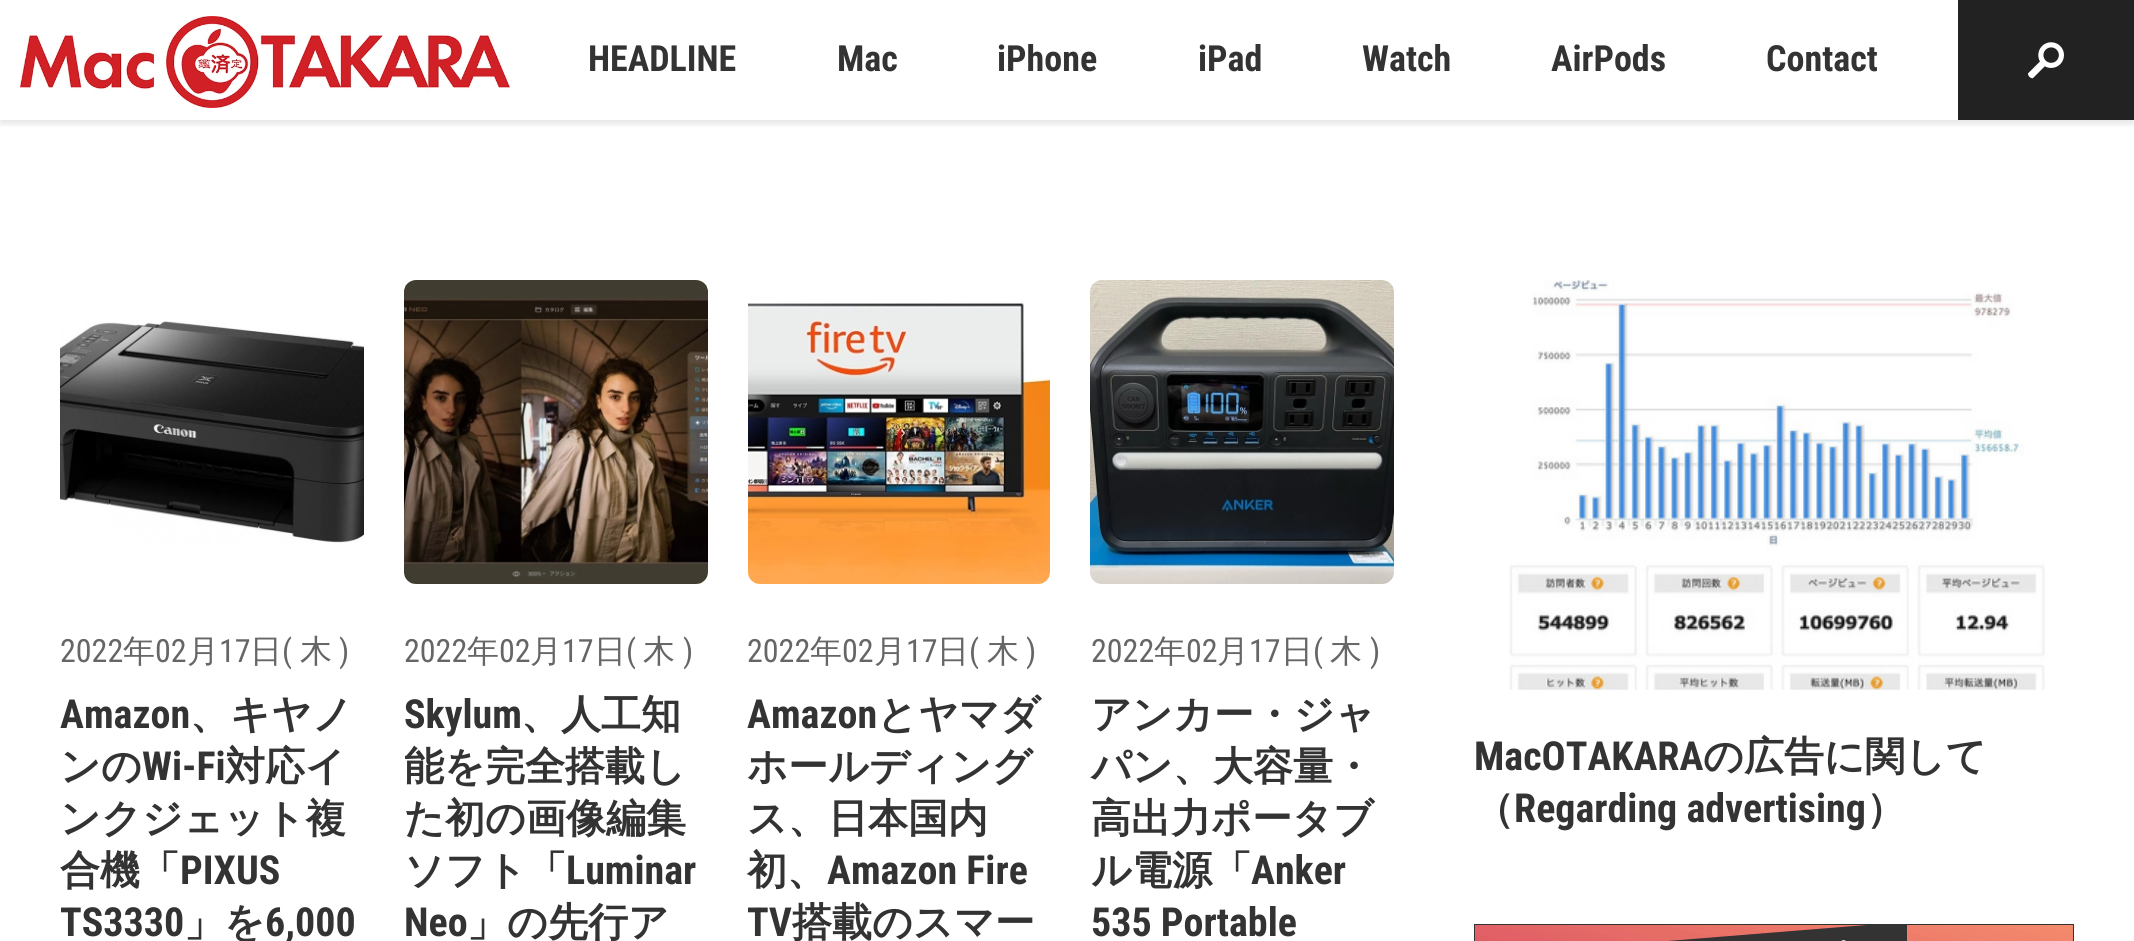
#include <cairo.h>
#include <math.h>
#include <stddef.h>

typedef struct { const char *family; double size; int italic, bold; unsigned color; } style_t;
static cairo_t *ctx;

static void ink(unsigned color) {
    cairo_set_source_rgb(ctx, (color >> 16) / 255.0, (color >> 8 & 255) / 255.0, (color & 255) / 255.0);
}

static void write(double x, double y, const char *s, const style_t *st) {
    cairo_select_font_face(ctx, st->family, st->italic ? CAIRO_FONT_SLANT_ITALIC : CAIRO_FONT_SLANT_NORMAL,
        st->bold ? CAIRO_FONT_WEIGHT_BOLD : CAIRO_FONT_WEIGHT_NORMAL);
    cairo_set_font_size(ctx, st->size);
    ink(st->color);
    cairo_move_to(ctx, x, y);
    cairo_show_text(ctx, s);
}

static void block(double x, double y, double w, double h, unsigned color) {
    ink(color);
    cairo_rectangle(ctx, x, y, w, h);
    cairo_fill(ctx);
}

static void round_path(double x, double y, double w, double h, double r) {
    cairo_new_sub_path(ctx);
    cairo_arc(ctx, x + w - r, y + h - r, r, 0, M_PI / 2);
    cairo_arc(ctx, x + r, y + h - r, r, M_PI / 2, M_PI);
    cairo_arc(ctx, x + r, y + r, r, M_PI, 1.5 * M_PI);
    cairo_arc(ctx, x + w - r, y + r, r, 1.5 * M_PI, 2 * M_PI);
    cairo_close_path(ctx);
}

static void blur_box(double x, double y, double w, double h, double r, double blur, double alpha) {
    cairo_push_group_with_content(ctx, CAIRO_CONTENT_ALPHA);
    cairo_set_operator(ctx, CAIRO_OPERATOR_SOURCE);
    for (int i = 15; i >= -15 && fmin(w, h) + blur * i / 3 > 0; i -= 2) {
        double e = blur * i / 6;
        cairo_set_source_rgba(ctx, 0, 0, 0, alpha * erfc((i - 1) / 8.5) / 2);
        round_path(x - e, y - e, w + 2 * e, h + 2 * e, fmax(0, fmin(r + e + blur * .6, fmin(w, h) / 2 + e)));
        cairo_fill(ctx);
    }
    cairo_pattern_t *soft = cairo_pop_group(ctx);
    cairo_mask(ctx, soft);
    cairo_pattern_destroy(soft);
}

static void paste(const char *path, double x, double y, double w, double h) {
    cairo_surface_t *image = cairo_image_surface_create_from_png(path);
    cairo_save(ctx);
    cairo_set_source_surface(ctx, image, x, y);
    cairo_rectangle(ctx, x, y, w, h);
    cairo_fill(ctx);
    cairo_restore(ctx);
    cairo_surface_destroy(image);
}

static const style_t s1 = {"Roboto Condensed", 36, 0, 1, 0x333333};
static const style_t s2 = {"Roboto Condensed", 32, 0, 0, 0x666666};
static const style_t s3 = {"WenQuanYi Zen Hei Medium", 32, 0, 0, 0x666666};
static const style_t s4 = {"Roboto Condensed", 40, 0, 1, 0x333333};
static const style_t s5 = {"WenQuanYi Zen Hei", 40, 0, 1, 0x333333};

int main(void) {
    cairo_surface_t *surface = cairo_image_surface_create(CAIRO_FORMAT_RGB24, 2134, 941);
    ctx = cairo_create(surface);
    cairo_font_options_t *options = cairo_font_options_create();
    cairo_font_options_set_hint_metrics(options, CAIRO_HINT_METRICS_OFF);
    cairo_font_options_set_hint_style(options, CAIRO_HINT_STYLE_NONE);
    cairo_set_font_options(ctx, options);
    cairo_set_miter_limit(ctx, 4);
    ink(0xffffff);
    cairo_paint(ctx);
    cairo_save(ctx);
    cairo_rectangle(ctx, 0, 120, 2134, 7);
    cairo_clip(ctx);
    ink(0x000000);
    blur_box(0, 4, 2134, 120, 0, 3, 0.1);
    cairo_restore(ctx);
    paste("pic1.png", 20, 16, 490, 92);
    write(588, 71, "HEADLINE", &s1);
    write(837, 71, "Mac", &s1);
    write(997, 71, "iPhone", &s1);
    write(1198, 71, "iPad", &s1);
    write(1362, 71, "Watch", &s1);
    write(1551, 71, "AirPods", &s1);
    write(1766, 71, "Contact", &s1);
    block(1958, 0, 176, 120, 0x222222);
    paste("pic2.png", 2028, 42, 36, 37);
    paste("pic3.png", 60, 321, 304, 222);
    write(60, 662, "2022", &s2);
    write(123, 662, "年", &s3);
    write(155, 662, "02", &s2);
    write(187, 662, "月", &s3);
    write(219, 662, "17", &s2);
    write(250, 662, "日", &s3);
    write(282, 662, "(", &s2);
    write(300, 662, "木", &s3);
    write(339, 662, ")", &s2);
    write(60, 728, "Amazon", &s4);
    write(190, 728, "、キヤノ", &s5);
    write(60, 780, "ンの", &s5);
    write(142, 780, "Wi-Fi", &s4);
    write(225, 780, "対応イ", &s5);
    write(60, 832, "ンクジェット複", &s5);
    write(60, 884, "合機「", &s5);
    write(180, 884, "PIXUS", &s4);
    write(60, 936, "TS3330", &s4);
    write(184, 936, "」を", &s5);
    write(265, 936, "6,000", &s4);
    paste("pic4.png", 404, 280, 304, 304);
    write(404, 662, "2022", &s2);
    write(467, 662, "年", &s3);
    write(499, 662, "02", &s2);
    write(530, 662, "月", &s3);
    write(562, 662, "17", &s2);
    write(594, 662, "日", &s3);
    write(626, 662, "(", &s2);
    write(643, 662, "木", &s3);
    write(683, 662, ")", &s2);
    write(404, 728, "Skylum", &s4);
    write(521, 728, "、人工知", &s5);
    write(404, 780, "能を完全搭載し", &s5);
    write(404, 832, "た初の画像編集", &s5);
    write(404, 884, "ソフト「", &s5);
    write(566, 884, "Luminar", &s4);
    write(404, 936, "Neo", &s4);
    write(467, 936, "」の先行ア", &s5);
    paste("pic5.png", 748, 302, 302, 282);
    write(747, 662, "2022", &s2);
    write(810, 662, "年", &s3);
    write(842, 662, "02", &s2);
    write(874, 662, "月", &s3);
    write(906, 662, "17", &s2);
    write(937, 662, "日", &s3);
    write(969, 662, "(", &s2);
    write(987, 662, "木", &s3);
    write(1026, 662, ")", &s2);
    write(747, 728, "Amazon", &s4);
    write(877, 728, "とヤマダ", &s5);
    write(747, 780, "ホールディング", &s5);
    write(747, 832, "ス、日本国内", &s5);
    write(747, 884, "初、", &s5);
    write(827, 884, "Amazon Fire", &s4);
    write(747, 936, "TV", &s4);
    write(792, 936, "搭載のスマー", &s5);
    paste("pic6.png", 1090, 280, 304, 304);
    write(1091, 662, "2022", &s2);
    write(1154, 662, "年", &s3);
    write(1186, 662, "02", &s2);
    write(1217, 662, "月", &s3);
    write(1249, 662, "17", &s2);
    write(1281, 662, "日", &s3);
    write(1313, 662, "(", &s2);
    write(1330, 662, "木", &s3);
    write(1370, 662, ")", &s2);
    write(1091, 728, "アンカー・ジャ", &s5);
    write(1091, 780, "パン、大容量・", &s5);
    write(1091, 832, "高出力ポータブ", &s5);
    write(1091, 884, "ル電源「", &s5);
    write(1251, 884, "Anker", &s4);
    write(1091, 936, "535 Portable", &s4);
    paste("pic7.png", 1509, 280, 536, 410);
    write(1474, 770, "MacOTAKARA", &s4);
    write(1703, 770, "の広告に関して", &s5);
    write(1474, 822, "（", &s5);
    write(1514, 822, "Regarding advertising", &s4);
    write(1866, 822, "）", &s5);
    paste("pic8.png", 1474, 924, 600, 17);
    cairo_surface_write_to_png(surface, "screenshot.png");
    cairo_font_options_destroy(options);
    cairo_destroy(ctx);
    cairo_surface_destroy(surface);
    return 0;
}
